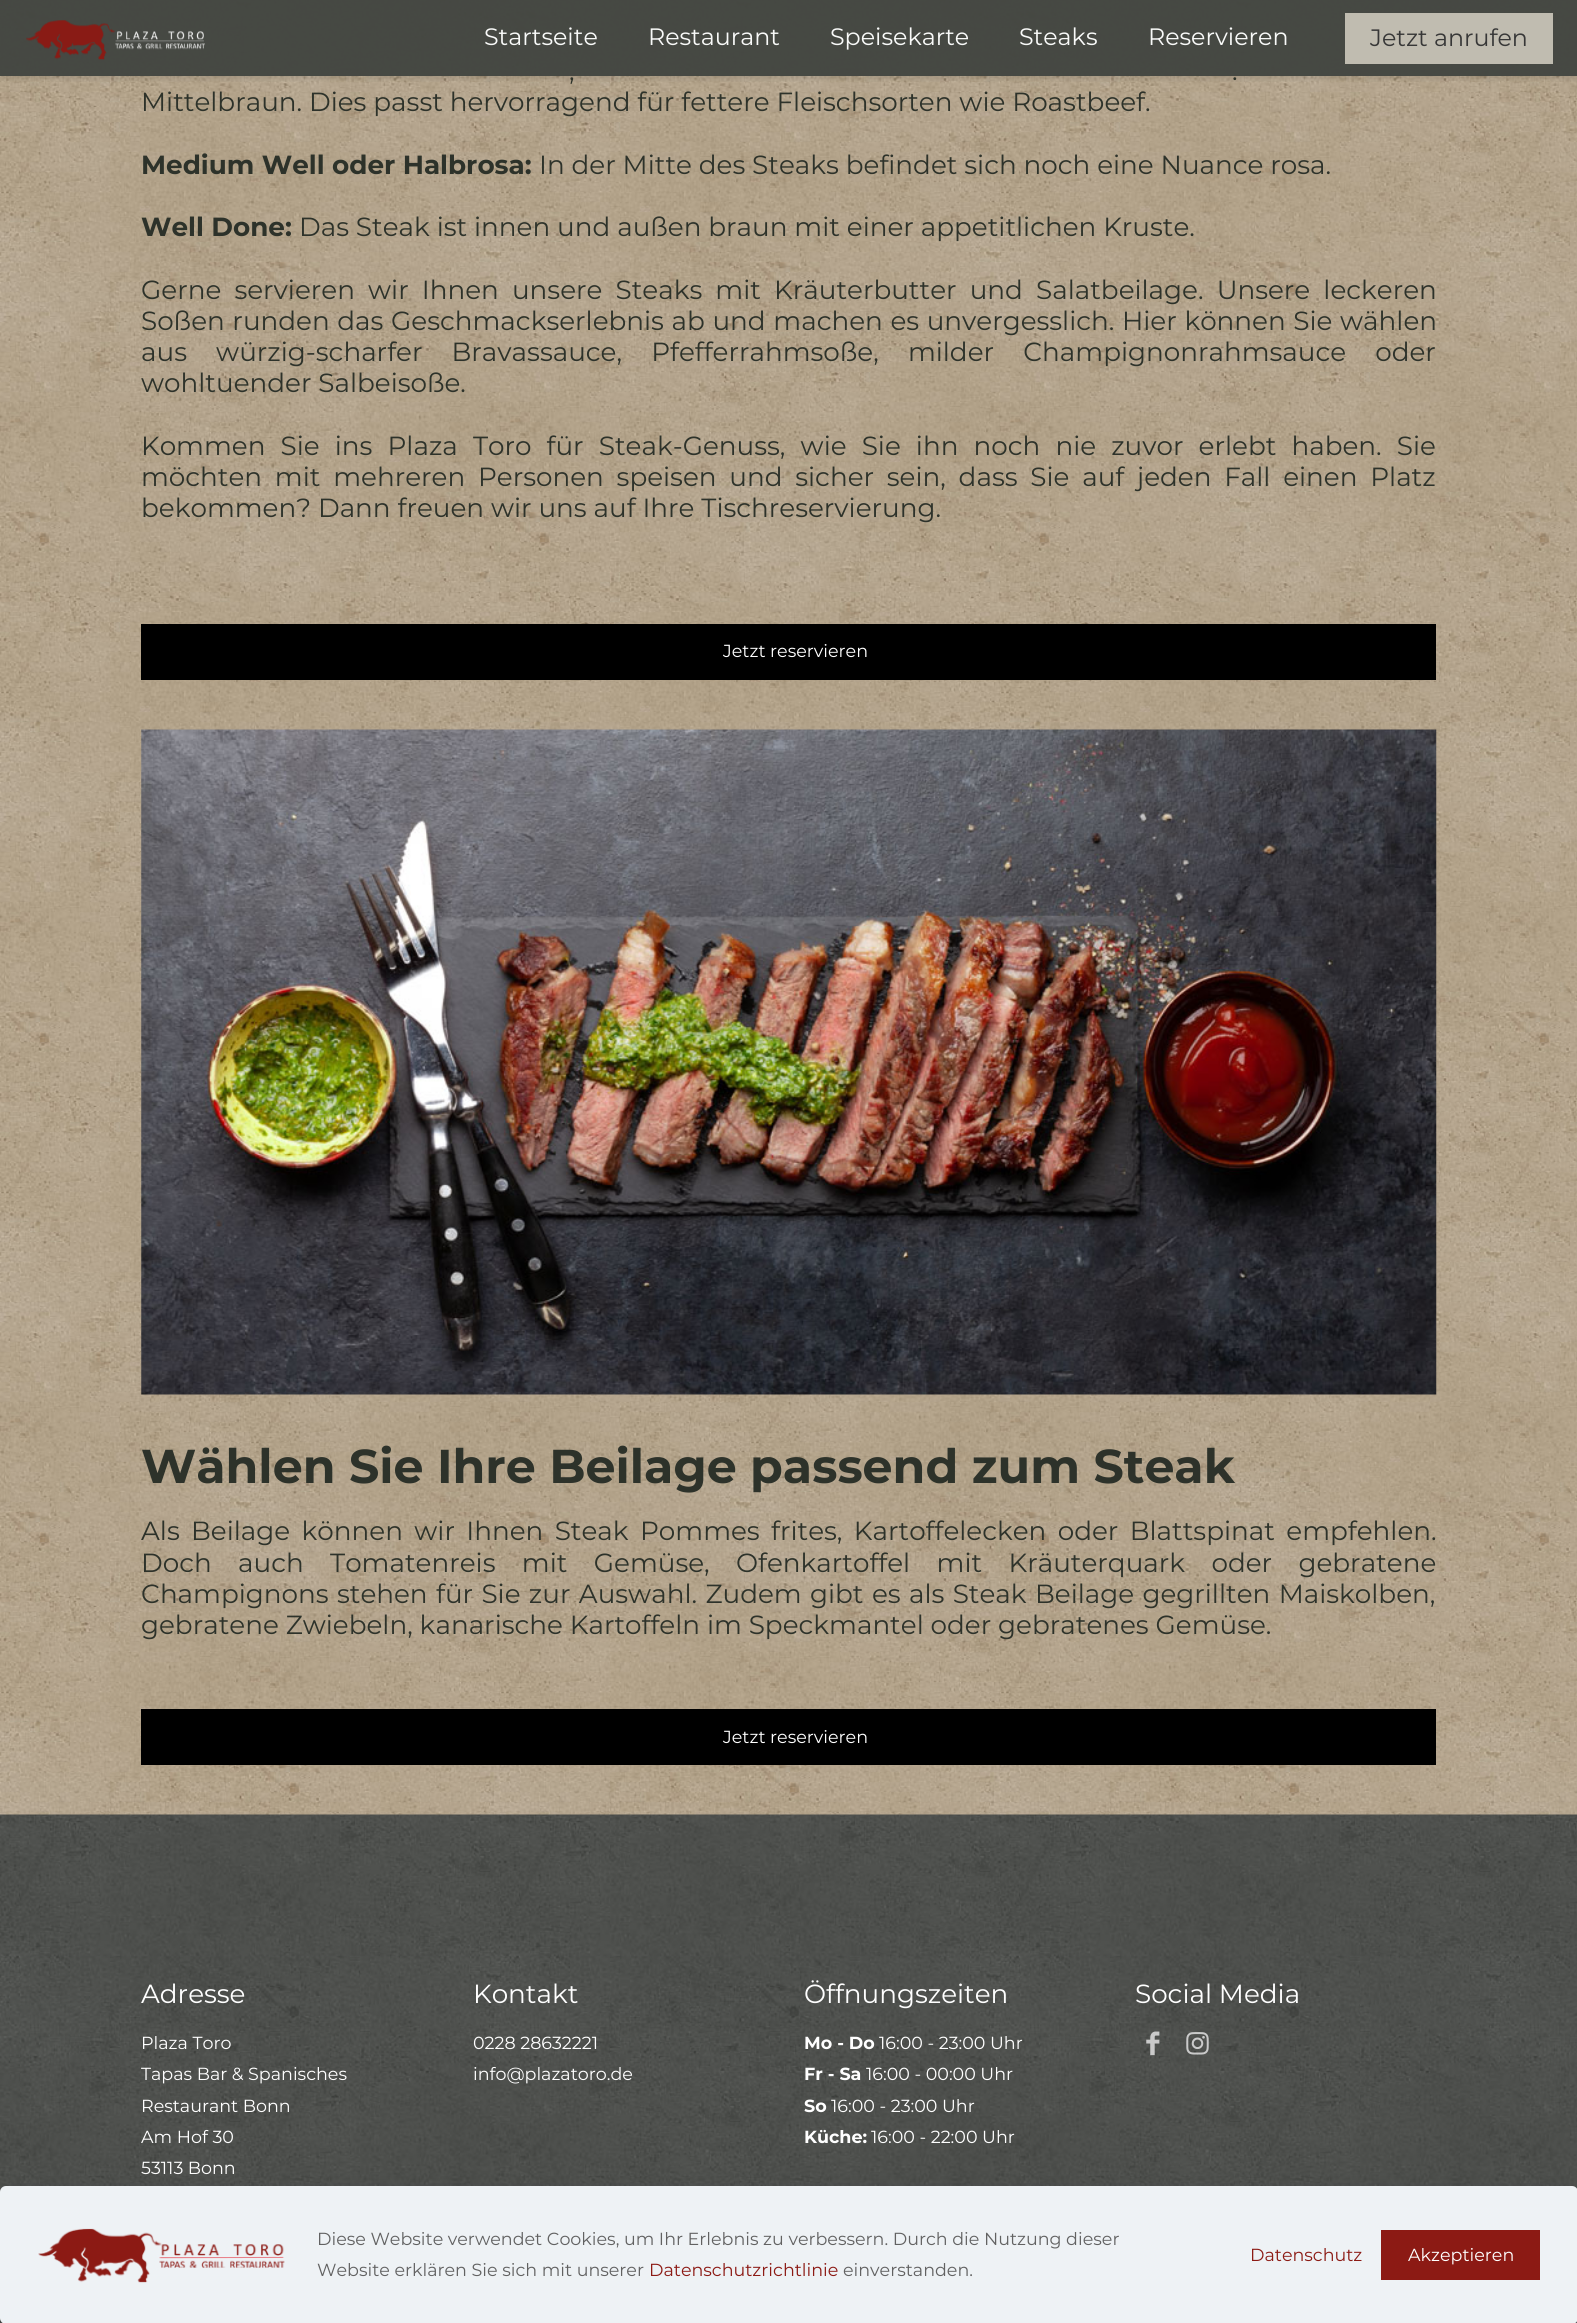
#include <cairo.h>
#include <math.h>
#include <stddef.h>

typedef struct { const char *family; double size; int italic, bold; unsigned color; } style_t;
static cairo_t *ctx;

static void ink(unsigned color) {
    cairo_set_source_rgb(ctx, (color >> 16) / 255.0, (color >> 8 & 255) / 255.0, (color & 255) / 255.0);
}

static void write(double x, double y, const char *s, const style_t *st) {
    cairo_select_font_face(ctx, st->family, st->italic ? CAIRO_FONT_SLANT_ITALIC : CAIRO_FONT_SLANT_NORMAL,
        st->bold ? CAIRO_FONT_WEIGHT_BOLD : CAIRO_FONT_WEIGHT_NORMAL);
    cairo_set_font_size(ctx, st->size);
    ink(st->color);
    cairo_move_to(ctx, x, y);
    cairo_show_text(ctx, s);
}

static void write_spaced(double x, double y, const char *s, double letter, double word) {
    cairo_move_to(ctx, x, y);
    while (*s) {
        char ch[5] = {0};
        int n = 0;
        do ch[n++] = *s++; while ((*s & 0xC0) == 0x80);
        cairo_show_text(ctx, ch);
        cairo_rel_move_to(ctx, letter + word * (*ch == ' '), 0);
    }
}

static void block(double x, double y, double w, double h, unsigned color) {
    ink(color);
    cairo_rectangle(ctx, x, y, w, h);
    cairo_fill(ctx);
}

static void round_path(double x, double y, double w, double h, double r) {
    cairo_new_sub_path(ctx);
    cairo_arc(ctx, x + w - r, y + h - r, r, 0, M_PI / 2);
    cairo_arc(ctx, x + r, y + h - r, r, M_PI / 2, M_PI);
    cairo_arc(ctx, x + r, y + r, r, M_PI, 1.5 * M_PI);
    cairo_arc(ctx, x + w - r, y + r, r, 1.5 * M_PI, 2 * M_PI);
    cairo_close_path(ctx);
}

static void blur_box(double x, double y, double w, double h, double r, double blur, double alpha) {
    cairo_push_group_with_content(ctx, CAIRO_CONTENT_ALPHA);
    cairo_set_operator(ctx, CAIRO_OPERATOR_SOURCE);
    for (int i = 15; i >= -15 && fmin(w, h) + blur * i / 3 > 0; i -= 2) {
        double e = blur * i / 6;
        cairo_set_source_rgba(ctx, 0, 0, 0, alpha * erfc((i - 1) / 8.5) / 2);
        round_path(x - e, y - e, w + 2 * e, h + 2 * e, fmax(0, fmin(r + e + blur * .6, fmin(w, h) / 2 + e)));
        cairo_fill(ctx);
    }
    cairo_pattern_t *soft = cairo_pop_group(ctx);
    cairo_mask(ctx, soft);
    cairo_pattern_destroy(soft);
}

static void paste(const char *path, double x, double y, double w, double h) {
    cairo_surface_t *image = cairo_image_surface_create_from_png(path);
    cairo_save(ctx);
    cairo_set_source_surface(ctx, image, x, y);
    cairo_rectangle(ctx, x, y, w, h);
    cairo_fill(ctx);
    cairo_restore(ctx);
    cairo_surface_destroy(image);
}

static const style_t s1 = {"Montserrat", 23.75, 0, 0, 0xf9faf9};
static const style_t s2 = {"Montserrat", 23.75, 0, 0, 0x373737};
static const style_t s3 = {"Montserrat", 26.25, 0, 0, 0x2d322a};
static const style_t s4 = {"Montserrat", 26.25, 0, 1, 0x2d322a};
static const style_t s5 = {"Montserrat", 17.5, 0, 0, 0xffffff};
static const style_t s6 = {"Montserrat", 47.5, 0, 1, 0x2d322a};
static const style_t s7 = {"Montserrat", 26.25, 0, 0, 0xffffff};
static const style_t s8 = {"Montserrat", 17.5, 0, 1, 0xffffff};
static const style_t s9 = {"Montserrat", 17.5, 0, 0, 0x626262};
static const style_t s10 = {"Montserrat", 17.5, 0, 0, 0x8c1a14};

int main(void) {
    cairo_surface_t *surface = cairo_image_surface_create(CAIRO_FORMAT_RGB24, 1577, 2323);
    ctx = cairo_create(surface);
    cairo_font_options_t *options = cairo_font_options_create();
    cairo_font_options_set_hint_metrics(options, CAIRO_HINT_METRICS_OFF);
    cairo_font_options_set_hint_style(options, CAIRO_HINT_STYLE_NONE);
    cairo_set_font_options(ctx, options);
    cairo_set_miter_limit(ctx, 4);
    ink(0xffffff);
    cairo_paint(ctx);
    paste("pic1.png", 0, 0, 1577, 1815);
    cairo_save(ctx);
    cairo_rectangle(ctx, 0, 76, 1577, 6);
    cairo_clip(ctx);
    ink(0x000000);
    blur_box(0, 3, 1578, 76, 0, 3, 0.1);
    cairo_restore(ctx);
    cairo_set_source_rgba(ctx, 0.263, 0.275, 0.255, 0.97);
    cairo_rectangle(ctx, 0, 0, 1577, 76);
    cairo_fill(ctx);
    paste("pic2.png", 26, 20, 179, 40);
    write(484, 45, "Startseite", &s1);
    write(648, 45, "Restaurant", &s1);
    write(830, 45, "Speisekarte", &s1);
    write(1019, 45, "Steaks", &s1);
    write(1148, 45, "Reservieren", &s1);
    cairo_set_source_rgba(ctx, 0.769, 0.753, 0.702, 0.97);
    cairo_rectangle(ctx, 1345, 13, 208, 51);
    cairo_fill(ctx);
    write(1370, 46, "Jetzt anrufen", &s2);
    cairo_set_font_size(ctx, 26.25);
    ink(0x2d322a);
    write_spaced(569, 80, ",", 0, 6);
    write_spaced(1232, 80, ".", 0, 6);
    write(141, 111, "Mittelbraun. Dies passt hervorragend für fettere Fleischsorten wie Roastbeef.", &s3);
    write(141, 174, "Medium Well oder Halbrosa:", &s4);
    write(539, 174, "In der Mitte des Steaks befindet sich noch eine Nuance rosa.", &s3);
    write(141, 236, "Well Done:", &s4);
    write(299, 236, "Das Steak ist innen und außen braun mit einer appetitlichen Kruste.", &s3);
    write_spaced(141, 299, "Gerne servieren wir Ihnen unsere Steaks mit Kräuterbutter und Salatbeilage. Unsere leckeren", 0, 6.25);
    write_spaced(141, 330, "Soßen runden das Geschmackserlebnis ab und machen es unvergesslich. Hier können Sie wählen", 0, 0.75);
    write_spaced(141, 361, "aus würzig-scharfer Bravassauce, Pfefferrahmsoße, milder Champignonrahmsauce oder", 0, 22.25);
    write(141, 392, "wohltuender Salbeisoße.", &s3);
    write_spaced(141, 455, "Kommen Sie ins Plaza Toro für Steak-Genuss, wie Sie ihn noch nie zuvor erlebt haben. Sie", 0, 8.25);
    write_spaced(141, 486, "möchten mit mehreren Personen speisen und sicher sein, dass Sie auf jeden Fall einen Platz", 0, 5.9);
    write(141, 517, "bekommen? Dann freuen wir uns auf Ihre Tischreservierung.", &s3);
    block(141, 624, 1295, 56, 0x000000);
    write(723, 657, "Jetzt reservieren", &s5);
    paste("pic3.png", 141, 729, 1296, 666);
    write(141, 1483, "Wählen Sie Ihre Beilage passend zum Steak", &s6);
    cairo_select_font_face(ctx, "Montserrat", CAIRO_FONT_SLANT_NORMAL, CAIRO_FONT_WEIGHT_NORMAL);
    cairo_set_font_size(ctx, 26.25);
    write_spaced(141, 1540, "Als Beilage können wir Ihnen Steak Pommes frites, Kartoffelecken oder Blattspinat empfehlen.", 0, 4.5);
    write_spaced(141, 1572, "Doch auch Tomatenreis mit Gemüse, Ofenkartoffel mit Kräuterquark oder gebratene", 0, 19.5);
    write_spaced(141, 1603, "Champignons stehen für Sie zur Auswahl. Zudem gibt es als Steak Beilage gegrillten Maiskolben,", 0, 1.5);
    write(141, 1634, "gebratene Zwiebeln, kanarische Kartoffeln im Speckmantel oder gebratenes Gemüse.", &s3);
    block(141, 1709, 1295, 56, 0x000000);
    write(723, 1743, "Jetzt reservieren", &s5);
    paste("pic4.png", 0, 1814, 1577, 509);
    write(141, 2003, "Adresse", &s7);
    write(141, 2049, "Plaza Toro", &s5);
    write(141, 2080, "Tapas Bar & Spanisches", &s5);
    write(141, 2112, "Restaurant Bonn", &s5);
    write(141, 2143, "Am Hof 30", &s5);
    write(141, 2174, "53113 Bonn", &s5);
    write(473, 2003, "Kontakt", &s7);
    write(473, 2049, "0228 28632221", &s5);
    write(473, 2080, "info@plazatoro.de", &s5);
    write(804, 2003, "Öffnungszeiten", &s7);
    write(804, 2049, "Mo - Do", &s8);
    write(879, 2049, "16:00 - 23:00 Uhr", &s5);
    write(804, 2080, "Fr - Sa", &s8);
    write(866, 2080, "16:00 - 00:00 Uhr", &s5);
    write(804, 2112, "So", &s8);
    write(831, 2112, "16:00 - 23:00 Uhr", &s5);
    write(804, 2143, "Küche:", &s8);
    write(871, 2143, "16:00 - 22:00 Uhr", &s5);
    write(1135, 2003, "Social Media", &s7);
    paste("pic5.png", 1146, 2031, 14, 25);
    paste("pic6.png", 1186, 2032, 23, 23);
    ink(0x010727);
    blur_box(0, 2205, 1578, 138, 6, 19, 0.13);
    ink(0xeef2f5);
    round_path(0, 2186, 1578, 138, 6);
    cairo_fill(ctx);
    paste("pic7.png", 38, 2228, 247, 55);
    write(317, 2245, "Diese Website verwendet Cookies, um Ihr Erlebnis zu verbessern. Durch die Nutzung dieser", &s9);
    write(317, 2276, "Website erklären Sie sich mit unserer", &s9);
    write(649, 2276, "Datenschutzrichtlinie", &s10);
    write(843, 2276, "einverstanden.", &s9);
    write(1250, 2261, "Datenschutz", &s10);
    block(1381, 2230, 159, 50, 0x8c1a14);
    write(1408, 2261, "Akzeptieren", &s5);
    cairo_surface_write_to_png(surface, "screenshot.png");
    cairo_font_options_destroy(options);
    cairo_destroy(ctx);
    cairo_surface_destroy(surface);
    return 0;
}
